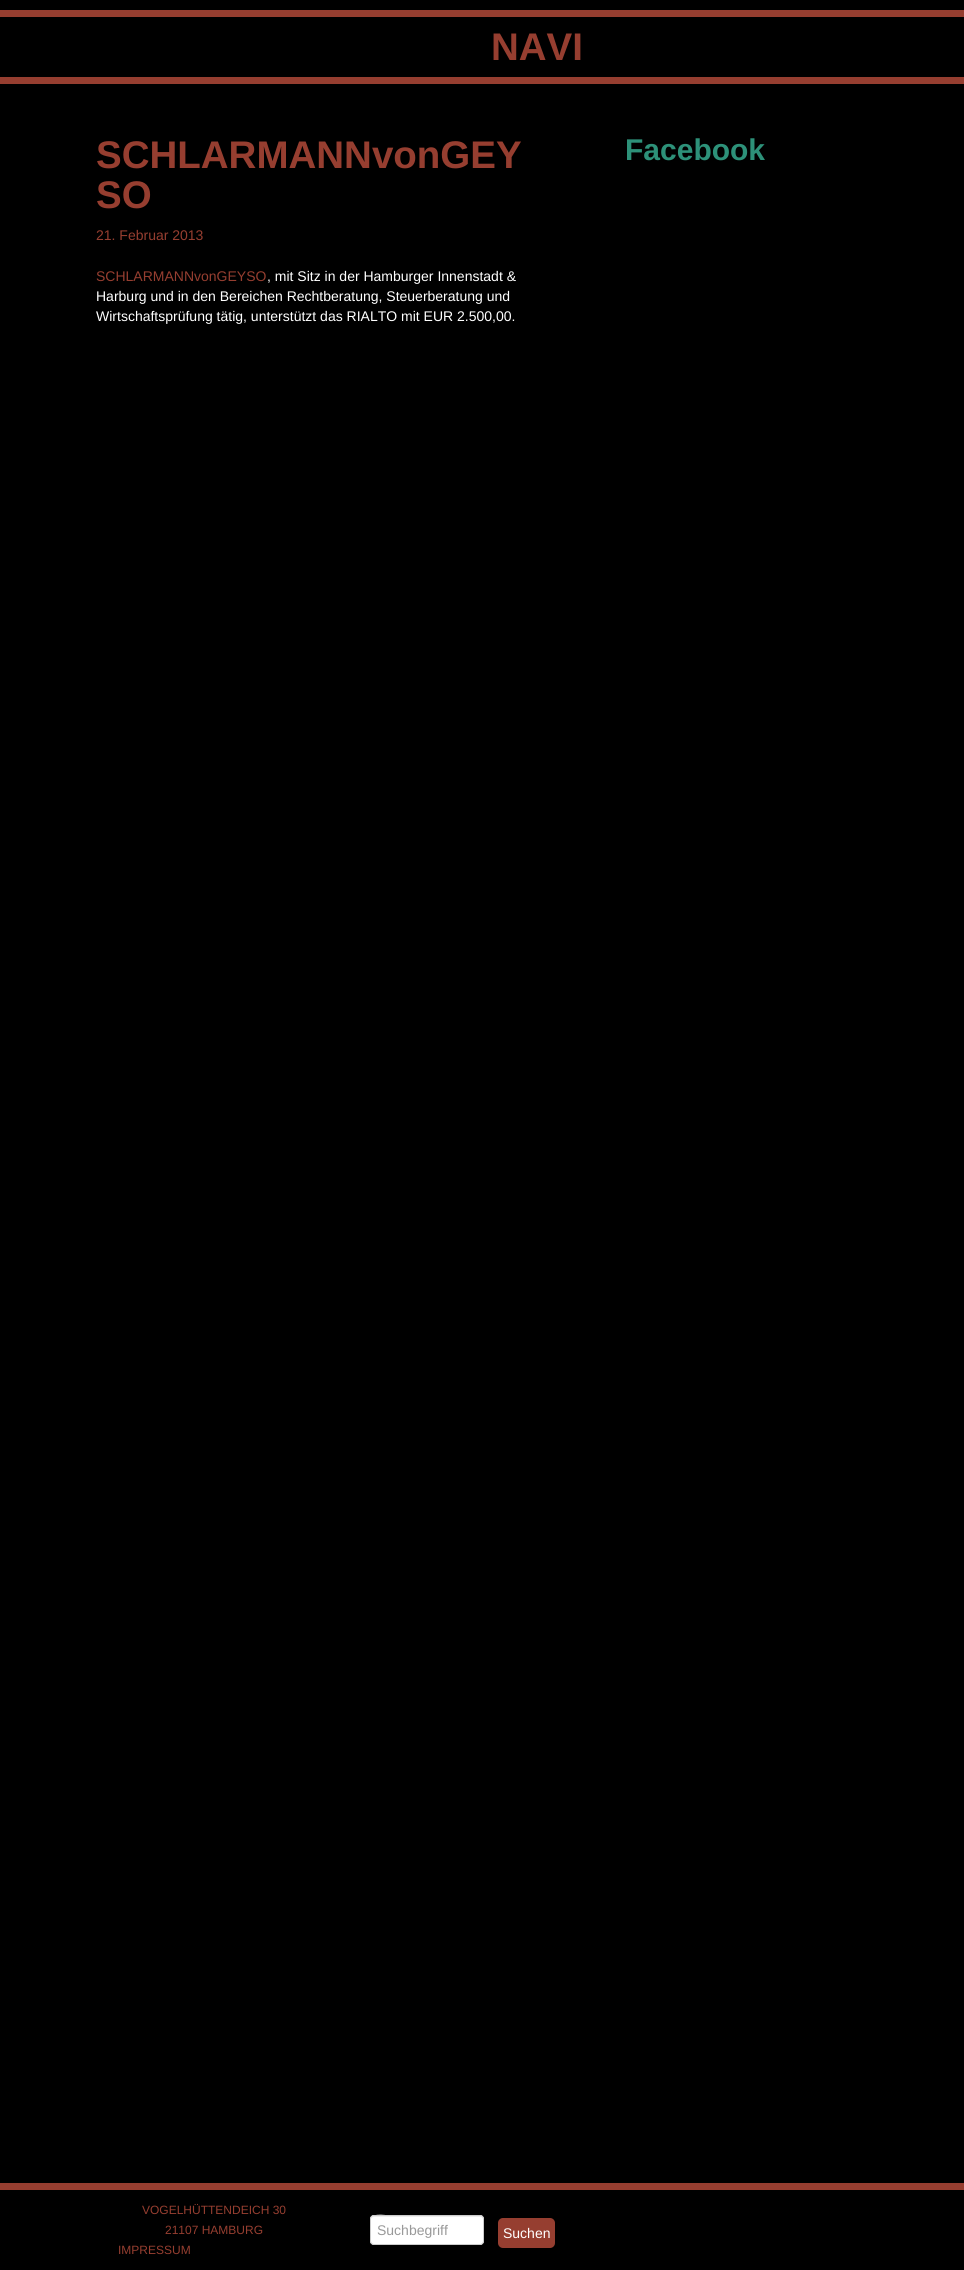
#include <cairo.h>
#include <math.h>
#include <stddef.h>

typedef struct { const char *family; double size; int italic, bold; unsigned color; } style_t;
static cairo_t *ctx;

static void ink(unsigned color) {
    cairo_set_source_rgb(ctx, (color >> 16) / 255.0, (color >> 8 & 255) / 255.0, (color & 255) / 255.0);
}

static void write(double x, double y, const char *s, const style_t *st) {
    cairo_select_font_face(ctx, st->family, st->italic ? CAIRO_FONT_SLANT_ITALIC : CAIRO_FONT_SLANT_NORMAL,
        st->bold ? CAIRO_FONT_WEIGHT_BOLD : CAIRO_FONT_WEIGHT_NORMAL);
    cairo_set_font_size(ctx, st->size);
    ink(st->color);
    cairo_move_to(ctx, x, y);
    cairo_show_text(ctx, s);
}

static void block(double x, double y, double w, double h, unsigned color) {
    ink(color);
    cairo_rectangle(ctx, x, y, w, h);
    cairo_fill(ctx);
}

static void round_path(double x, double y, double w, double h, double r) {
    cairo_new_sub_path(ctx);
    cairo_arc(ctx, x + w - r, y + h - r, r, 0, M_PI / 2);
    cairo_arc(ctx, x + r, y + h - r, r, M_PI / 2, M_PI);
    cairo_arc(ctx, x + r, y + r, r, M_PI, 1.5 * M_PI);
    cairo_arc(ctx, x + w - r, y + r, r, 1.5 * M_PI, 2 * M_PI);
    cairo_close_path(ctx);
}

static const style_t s1 = {"Liberation Sans", 38.5, 0, 1, 0x963e30};
static const style_t s2 = {"Liberation Sans", 14, 0, 0, 0x963e30};
static const style_t s3 = {"Liberation Sans", 14, 0, 0, 0xffffff};
static const style_t s4 = {"Liberation Sans", 30, 0, 1, 0x2d9179};
static const style_t s5 = {"Liberation Sans", 12, 0, 0, 0x963e30};
static const style_t s6 = {"Liberation Sans", 14, 0, 0, 0x999999};

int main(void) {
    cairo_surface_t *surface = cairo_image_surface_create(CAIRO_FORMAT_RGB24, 964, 2270);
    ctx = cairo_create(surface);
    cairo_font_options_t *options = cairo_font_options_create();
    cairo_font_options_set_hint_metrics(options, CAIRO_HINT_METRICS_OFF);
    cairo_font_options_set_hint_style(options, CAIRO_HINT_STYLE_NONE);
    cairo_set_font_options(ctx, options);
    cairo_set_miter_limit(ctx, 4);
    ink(0x000000);
    cairo_paint(ctx);
    block(0, 10, 964, 7, 0x963e30);
    block(0, 77, 964, 7, 0x963e30);
    write(491, 60, "NAVI", &s1);
    write(96, 168, "SCHLARMANNvonGEY", &s1);
    write(96, 208, "SO", &s1);
    write(96, 240, "21. Februar 2013", &s2);
    write(96, 281, "SCHLARMANNvonGEYSO", &s2);
    write(267, 281, ", mit Sitz in der Hamburger Innenstadt &", &s3);
    write(96, 301, "Harburg und in den Bereichen Rechtberatung, Steuerberatung und", &s3);
    write(96, 321, "Wirtschaftsprüfung tätig, unterstützt das RIALTO mit EUR 2.500,00.", &s3);
    write(625, 160, "Facebook", &s4);
    block(0, 2183, 964, 7, 0x963e30);
    write(142, 2214, "VOGELHÜTTENDEICH 30", &s5);
    write(165, 2234, "21107 HAMBURG", &s5);
    write(118, 2254, "IMPRESSUM", &s5);
    ink(0xffffff);
    round_path(370, 2215, 114, 30, 4);
    cairo_fill(ctx);
    ink(0xececec);
    cairo_new_path(ctx);
    cairo_move_to(ctx, 374, 2217);
    cairo_line_to(ctx, 480, 2217);
    cairo_curve_to(ctx, 482, 2217, 483, 2218, 483, 2220);
    cairo_curve_to(ctx, 483, 2218, 482, 2216, 480, 2216);
    cairo_line_to(ctx, 392, 2216);
    cairo_curve_to(ctx, 390, 2216, 371, 2211, 371, 2220);
    cairo_curve_to(ctx, 371, 2218, 372, 2217, 374, 2217);
    cairo_close_path(ctx);
    cairo_fill(ctx);
    round_path(370.5, 2215.5, 113, 29, 3.5);
    ink(0xcccccc);
    cairo_set_line_width(ctx, 1);
    cairo_stroke(ctx);
    write(377, 2235, "Suchbegriff", &s6);
    ink(0x963e30);
    round_path(498, 2218, 57, 30, 5);
    cairo_fill(ctx);
    write(503, 2238, "Suchen", &s3);
    cairo_surface_write_to_png(surface, "screenshot.png");
    cairo_font_options_destroy(options);
    cairo_destroy(ctx);
    cairo_surface_destroy(surface);
    return 0;
}
